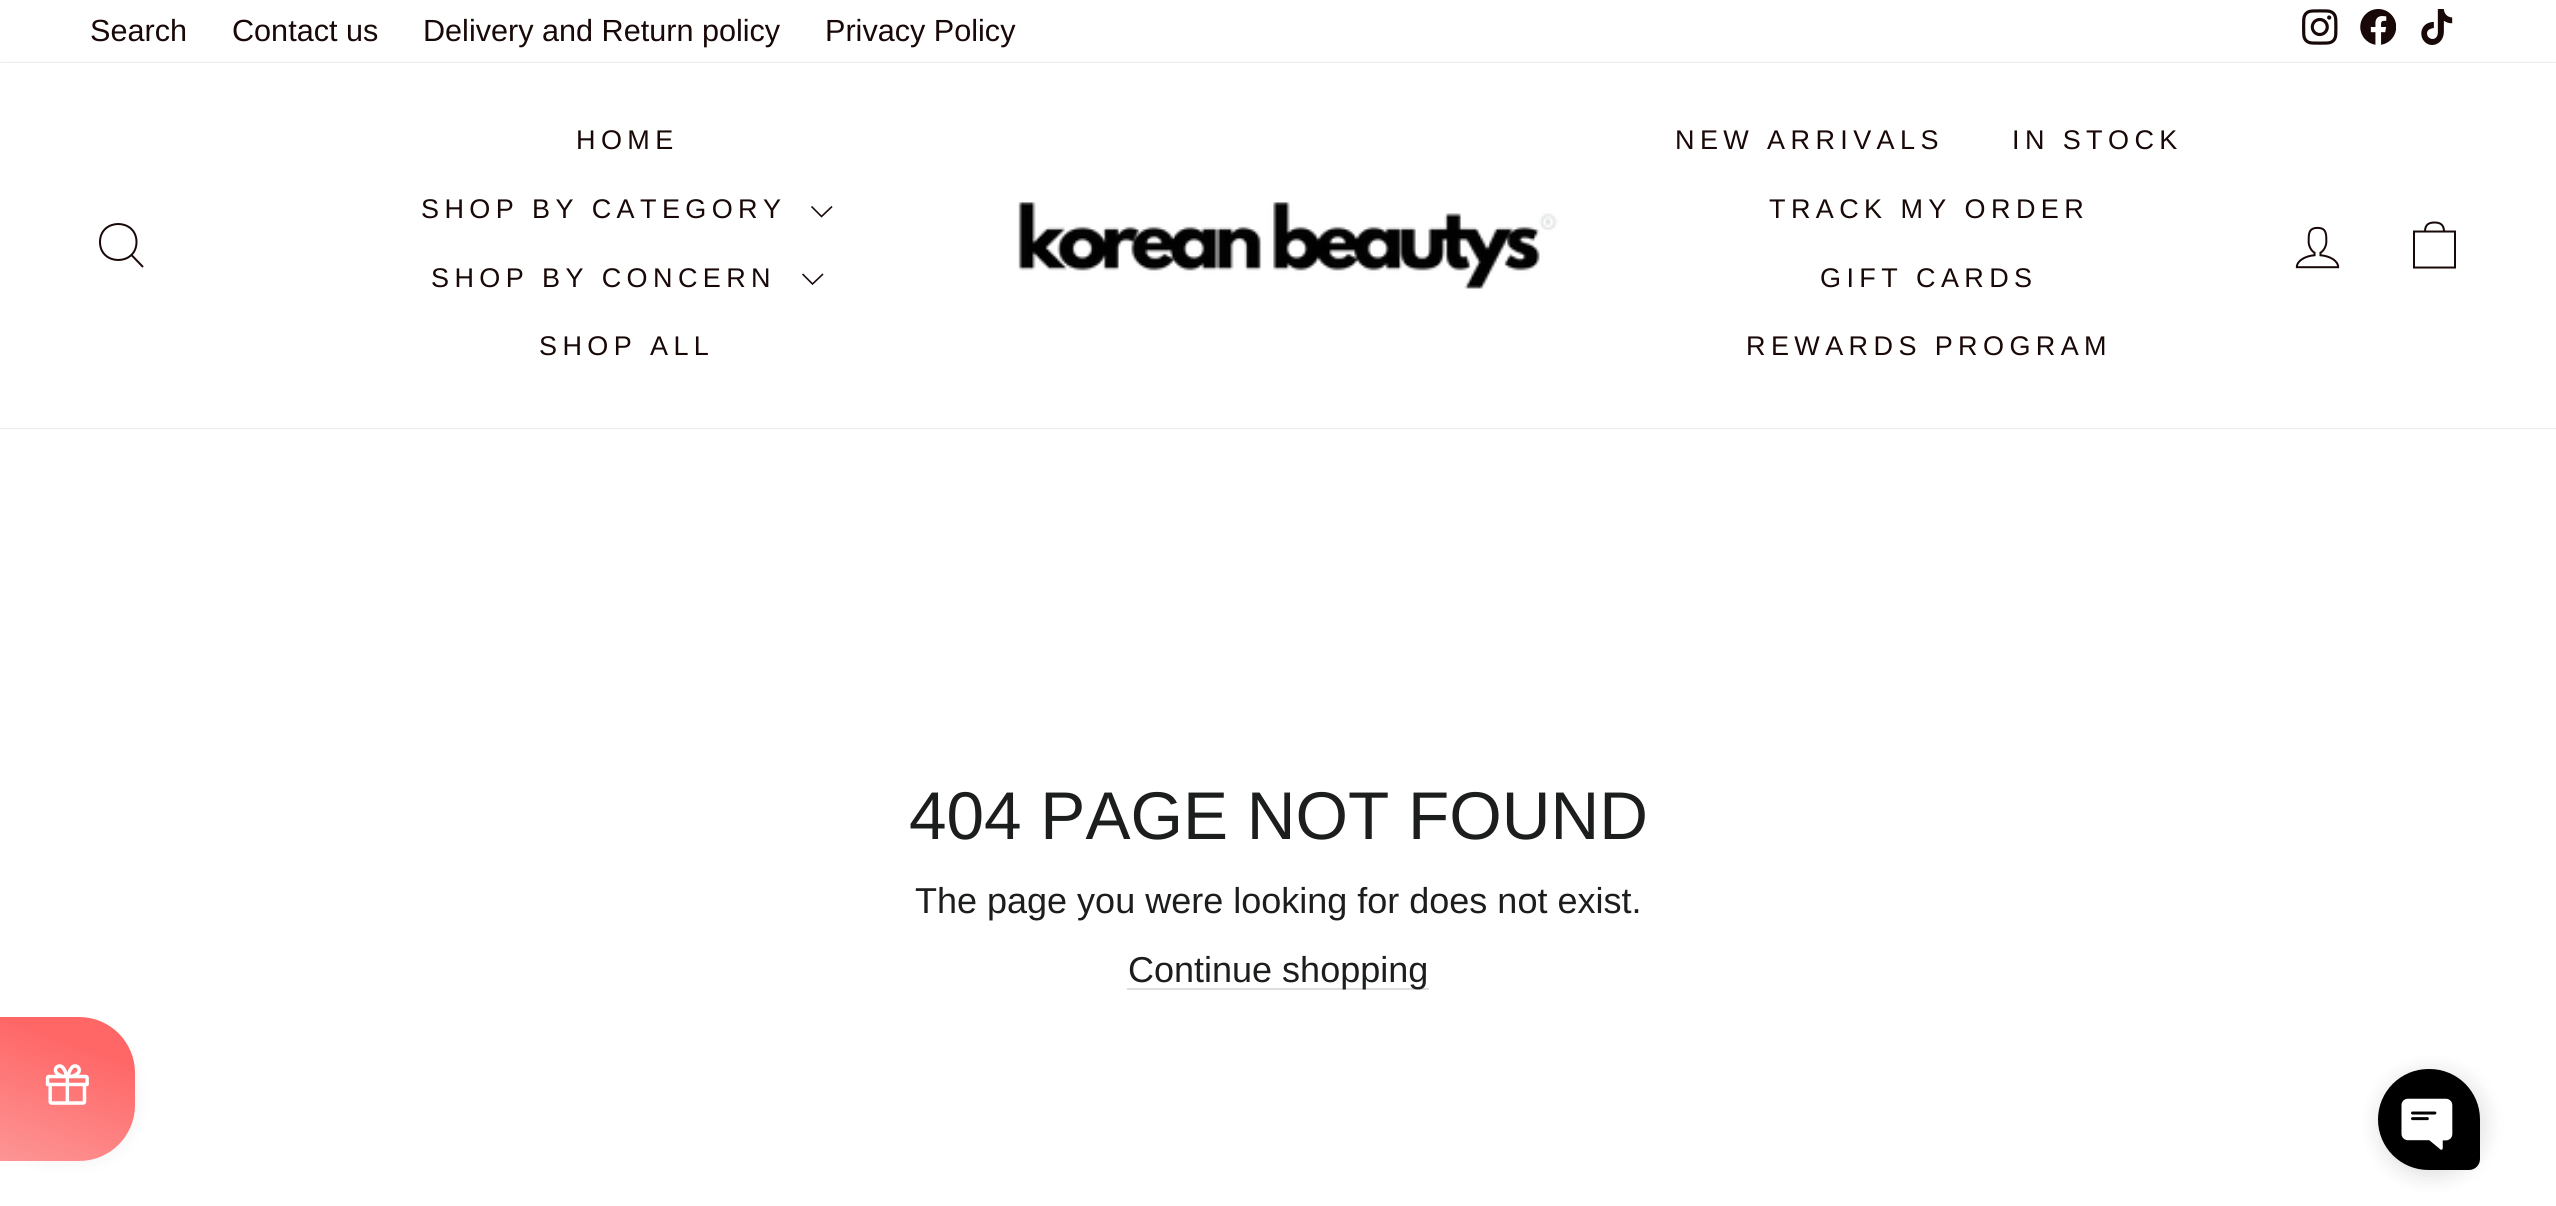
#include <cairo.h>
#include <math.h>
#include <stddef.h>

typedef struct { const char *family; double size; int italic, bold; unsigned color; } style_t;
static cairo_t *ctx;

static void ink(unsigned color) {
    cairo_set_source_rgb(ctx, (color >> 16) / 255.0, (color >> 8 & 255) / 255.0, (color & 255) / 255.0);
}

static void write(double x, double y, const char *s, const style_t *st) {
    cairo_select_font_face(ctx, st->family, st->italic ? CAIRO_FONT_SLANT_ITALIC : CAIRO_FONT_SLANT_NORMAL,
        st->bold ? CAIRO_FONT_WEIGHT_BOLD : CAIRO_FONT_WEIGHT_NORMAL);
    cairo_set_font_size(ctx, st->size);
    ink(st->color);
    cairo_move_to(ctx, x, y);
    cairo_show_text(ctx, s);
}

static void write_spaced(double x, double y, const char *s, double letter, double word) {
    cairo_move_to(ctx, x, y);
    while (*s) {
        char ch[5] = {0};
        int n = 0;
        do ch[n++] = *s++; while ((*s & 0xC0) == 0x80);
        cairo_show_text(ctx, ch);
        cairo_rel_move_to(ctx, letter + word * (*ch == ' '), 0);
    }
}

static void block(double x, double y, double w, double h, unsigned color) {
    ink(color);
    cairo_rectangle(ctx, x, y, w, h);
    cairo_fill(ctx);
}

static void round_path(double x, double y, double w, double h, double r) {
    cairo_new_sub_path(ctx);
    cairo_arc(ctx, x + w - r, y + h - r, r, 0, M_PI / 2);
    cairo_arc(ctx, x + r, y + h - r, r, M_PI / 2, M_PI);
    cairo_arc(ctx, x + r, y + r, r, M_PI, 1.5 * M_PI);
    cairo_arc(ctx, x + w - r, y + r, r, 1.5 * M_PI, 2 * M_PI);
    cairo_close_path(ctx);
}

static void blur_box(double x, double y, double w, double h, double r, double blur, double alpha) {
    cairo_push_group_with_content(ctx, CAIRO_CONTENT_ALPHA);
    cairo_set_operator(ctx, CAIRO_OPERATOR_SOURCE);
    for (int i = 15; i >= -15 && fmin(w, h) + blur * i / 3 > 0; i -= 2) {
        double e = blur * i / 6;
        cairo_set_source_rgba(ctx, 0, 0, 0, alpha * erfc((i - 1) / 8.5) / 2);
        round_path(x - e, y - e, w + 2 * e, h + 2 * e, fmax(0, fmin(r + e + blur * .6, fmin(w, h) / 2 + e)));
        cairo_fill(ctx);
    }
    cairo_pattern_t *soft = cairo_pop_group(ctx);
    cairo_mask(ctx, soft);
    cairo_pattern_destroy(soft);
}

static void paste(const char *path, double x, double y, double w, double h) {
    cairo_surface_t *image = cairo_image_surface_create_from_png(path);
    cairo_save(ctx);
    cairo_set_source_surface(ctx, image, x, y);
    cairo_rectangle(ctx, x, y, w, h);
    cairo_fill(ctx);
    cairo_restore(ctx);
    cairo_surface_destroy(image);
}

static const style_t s1 = {"Liberation Sans", 30.6, 0, 0, 0x180807};
static const style_t s2 = {"Liberation Sans", 67.5, 0, 0, 0x1c1d1d};
static const style_t s3 = {"Liberation Sans", 36, 0, 0, 0x1c1d1d};

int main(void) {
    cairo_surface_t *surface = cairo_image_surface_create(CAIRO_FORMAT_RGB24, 2556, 1206);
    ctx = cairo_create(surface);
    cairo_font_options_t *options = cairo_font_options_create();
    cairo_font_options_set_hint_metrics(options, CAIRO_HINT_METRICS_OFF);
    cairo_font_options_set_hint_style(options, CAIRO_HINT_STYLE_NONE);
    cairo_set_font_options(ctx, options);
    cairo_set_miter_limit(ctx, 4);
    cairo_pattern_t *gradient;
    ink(0xffffff);
    cairo_paint(ctx);
    write(90, 41, "Search", &s1);
    write(232, 41, "Contact us", &s1);
    write(423, 41, "Delivery and Return policy", &s1);
    write(825, 41, "Privacy Policy", &s1);
    paste("pic1.png", 2302, 9, 36, 36);
    paste("pic2.png", 2360, 9, 36, 36);
    paste("pic3.png", 2421, 9, 32, 36);
    ink(0x000000);
    blur_box(0, 63, 2556, 365, 0, 1, 0.2);
    block(0, 63, 2556, 365, 0xffffff);
    cairo_new_path(ctx);
    cairo_move_to(ctx, 136.5, 242);
    cairo_curve_to(ctx, 136.5, 266, 100, 266, 100, 242);
    cairo_curve_to(ctx, 100, 218, 136.5, 218, 136.5, 242);
    cairo_close_path(ctx);
    cairo_move_to(ctx, 143, 267);
    cairo_line_to(ctx, 131.5, 255);
    ink(0x180807);
    cairo_stroke(ctx);
    cairo_set_font_size(ctx, 27);
    write_spaced(576, 149, "HOME", 5.4, 0);
    write_spaced(421, 218, "SHOP BY CATEGORY", 5.4, 0);
    cairo_new_path(ctx);
    cairo_move_to(ctx, 811.5, 206.5);
    cairo_line_to(ctx, 821.5, 216.5);
    cairo_line_to(ctx, 832, 206.5);
    cairo_set_line_width(ctx, 1.6);
    cairo_stroke(ctx);
    write_spaced(431, 287, "SHOP BY CONCERN", 5.4, 0);
    cairo_new_path(ctx);
    cairo_move_to(ctx, 802.5, 274);
    cairo_line_to(ctx, 812.5, 284);
    cairo_line_to(ctx, 823, 274);
    cairo_stroke(ctx);
    write_spaced(539, 355, "SHOP ALL", 5.4, 0);
    paste("pic4.png", 1018, 202, 540, 87);
    write_spaced(1675, 149, "NEW ARRIVALS", 5.4, 0);
    write_spaced(2012, 149, "IN STOCK", 5.4, 0);
    write_spaced(1769, 218, "TRACK MY ORDER", 5.4, 0);
    write_spaced(1820, 287, "GIFT CARDS", 5.4, 0);
    write_spaced(1746, 355, "REWARDS PROGRAM", 5.4, 0);
    paste("pic5.png", 2295, 226, 45, 43);
    cairo_new_path(ctx);
    cairo_move_to(ctx, 2414, 231.5);
    cairo_line_to(ctx, 2455, 231.5);
    cairo_line_to(ctx, 2455, 267.5);
    cairo_line_to(ctx, 2414, 267.5);
    cairo_close_path(ctx);
    cairo_move_to(ctx, 2425, 231.5);
    cairo_curve_to(ctx, 2425, 224.5, 2429, 222.5, 2434.5, 222.5);
    cairo_curve_to(ctx, 2440, 222.5, 2444, 224.5, 2444, 231.5);
    cairo_set_line_width(ctx, 2);
    cairo_stroke(ctx);
    write(909, 839, "404 PAGE NOT FOUND", &s2);
    write(915, 913, "The page you were looking for does not exist.", &s3);
    block(1127, 988, 302, 2, 0xdddddd);
    write(1128, 982, "Continue shopping", &s3);
    ink(0x444444);
    blur_box(0, 1035, 135, 126, 52, 9, 0.08);
    gradient = cairo_pattern_create_linear(98, 1004, 13, 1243);
    cairo_pattern_add_color_stop_rgba(gradient, 0.17, 1, 0.4, 0.4, 1);
    cairo_pattern_add_color_stop_rgba(gradient, 1, 0.988, 0.682, 0.682, 1);
    cairo_set_source(ctx, gradient);
    cairo_pattern_destroy(gradient);
    cairo_new_path(ctx);
    cairo_move_to(ctx, 135, 1073);
    cairo_line_to(ctx, 135, 1105);
    cairo_curve_to(ctx, 135, 1136, 110, 1161, 79, 1161);
    cairo_line_to(ctx, 0, 1161);
    cairo_line_to(ctx, 0, 1017);
    cairo_line_to(ctx, 79, 1017);
    cairo_curve_to(ctx, 110, 1017, 135, 1042, 135, 1073);
    cairo_close_path(ctx);
    cairo_fill(ctx);
    paste("pic6.png", 45, 1064, 44, 41);
    ink(0x000000);
    blur_box(2378, 1069, 111, 110, 55, 10, 0.07);
    blur_box(2378, 1073, 102, 102, 51, 11, 0.05);
    paste("pic7.png", 2378, 1069, 102, 101);
    cairo_surface_write_to_png(surface, "screenshot.png");
    cairo_font_options_destroy(options);
    cairo_destroy(ctx);
    cairo_surface_destroy(surface);
    return 0;
}
